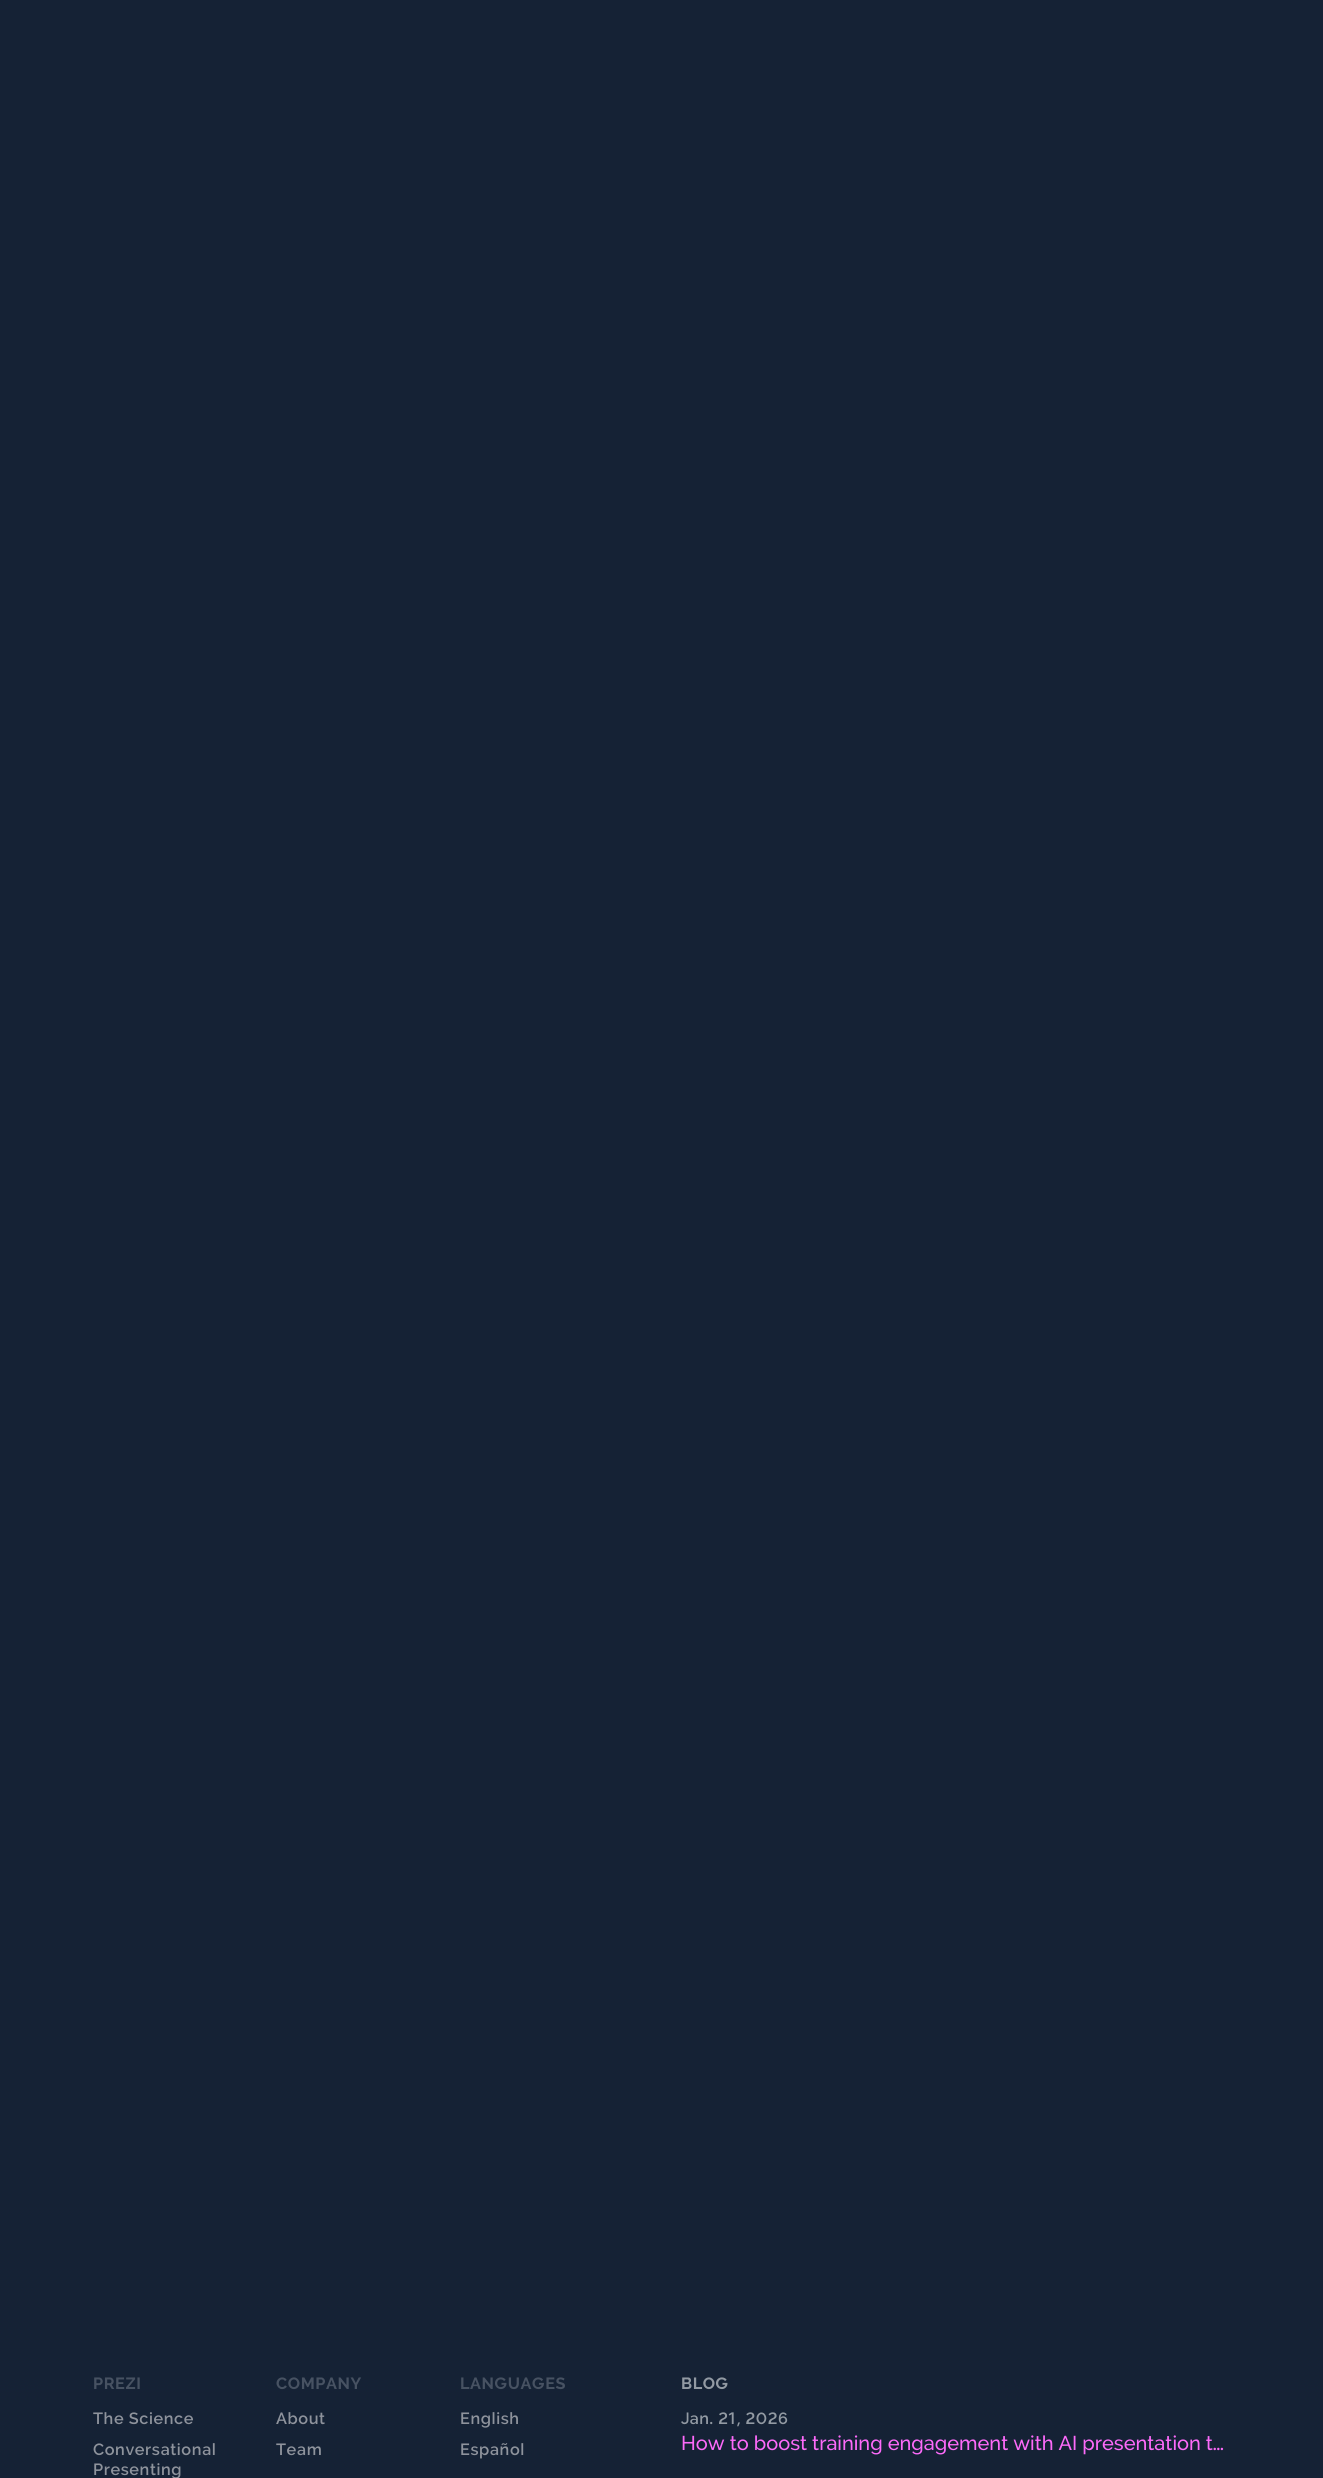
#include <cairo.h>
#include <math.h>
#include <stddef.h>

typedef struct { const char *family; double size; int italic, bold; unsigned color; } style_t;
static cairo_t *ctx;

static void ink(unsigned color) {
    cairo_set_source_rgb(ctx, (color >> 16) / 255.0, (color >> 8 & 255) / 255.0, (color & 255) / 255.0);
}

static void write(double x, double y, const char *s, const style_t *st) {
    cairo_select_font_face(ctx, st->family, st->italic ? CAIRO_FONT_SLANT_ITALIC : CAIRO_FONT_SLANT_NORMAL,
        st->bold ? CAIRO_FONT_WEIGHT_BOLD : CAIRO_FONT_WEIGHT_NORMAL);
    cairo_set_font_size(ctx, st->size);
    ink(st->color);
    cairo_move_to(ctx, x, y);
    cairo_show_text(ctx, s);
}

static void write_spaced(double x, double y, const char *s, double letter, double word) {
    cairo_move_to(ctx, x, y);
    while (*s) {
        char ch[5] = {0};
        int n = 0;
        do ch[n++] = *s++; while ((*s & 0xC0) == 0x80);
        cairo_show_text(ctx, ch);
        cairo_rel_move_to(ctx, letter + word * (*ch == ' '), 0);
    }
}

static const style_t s1 = {"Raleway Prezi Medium", 20, 0, 0, 0xfd6afa};

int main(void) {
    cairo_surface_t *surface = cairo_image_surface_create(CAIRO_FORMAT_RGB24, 1323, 2478);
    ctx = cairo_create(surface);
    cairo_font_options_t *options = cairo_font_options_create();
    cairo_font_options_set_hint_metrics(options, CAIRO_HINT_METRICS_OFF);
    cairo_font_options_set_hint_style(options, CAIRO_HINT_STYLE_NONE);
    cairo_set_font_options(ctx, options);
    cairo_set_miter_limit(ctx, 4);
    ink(0x152235);
    cairo_paint(ctx);
    cairo_select_font_face(ctx, "Raleway Prezi", CAIRO_FONT_SLANT_NORMAL, CAIRO_FONT_WEIGHT_BOLD);
    cairo_set_font_size(ctx, 16.25);
    ink(0x475262);
    write_spaced(93, 2389, "PREZI", 0.6, 0);
    cairo_select_font_face(ctx, "Raleway Prezi SemiBold", CAIRO_FONT_SLANT_NORMAL, CAIRO_FONT_WEIGHT_NORMAL);
    ink(0x8e939c);
    write_spaced(93, 2424, "The Science", 0.6, 0);
    write_spaced(93, 2455, "Conversational", 0.6, 0);
    write_spaced(93, 2475, "Presenting", 0.6, 0);
    cairo_select_font_face(ctx, "Raleway Prezi", CAIRO_FONT_SLANT_NORMAL, CAIRO_FONT_WEIGHT_BOLD);
    ink(0x475262);
    write_spaced(276, 2389, "COMPANY", 0.6, 0);
    cairo_select_font_face(ctx, "Raleway Prezi SemiBold", CAIRO_FONT_SLANT_NORMAL, CAIRO_FONT_WEIGHT_NORMAL);
    ink(0x8e939c);
    write_spaced(276, 2424, "About", 0.6, 0);
    write_spaced(276, 2455, "Team", 0.6, 0);
    cairo_select_font_face(ctx, "Raleway Prezi", CAIRO_FONT_SLANT_NORMAL, CAIRO_FONT_WEIGHT_BOLD);
    ink(0x475262);
    write_spaced(460, 2389, "LANGUAGES", 0.6, 0);
    cairo_select_font_face(ctx, "Raleway Prezi SemiBold", CAIRO_FONT_SLANT_NORMAL, CAIRO_FONT_WEIGHT_NORMAL);
    ink(0x8e939c);
    write_spaced(460, 2424, "English", 0.6, 0);
    write_spaced(460, 2455, "Español", 0.6, 0);
    cairo_select_font_face(ctx, "Raleway Prezi", CAIRO_FONT_SLANT_NORMAL, CAIRO_FONT_WEIGHT_BOLD);
    ink(0x929aa3);
    write_spaced(681, 2389, "BLOG", 0.6, 0);
    cairo_select_font_face(ctx, "Raleway Prezi SemiBold", CAIRO_FONT_SLANT_NORMAL, CAIRO_FONT_WEIGHT_NORMAL);
    write_spaced(681, 2424, "Jan. 21, 2026", 0.6, 0);
    write(681, 2450, "How to boost training engagement with AI presentation t…", &s1);
    cairo_surface_write_to_png(surface, "screenshot.png");
    cairo_font_options_destroy(options);
    cairo_destroy(ctx);
    cairo_surface_destroy(surface);
    return 0;
}
